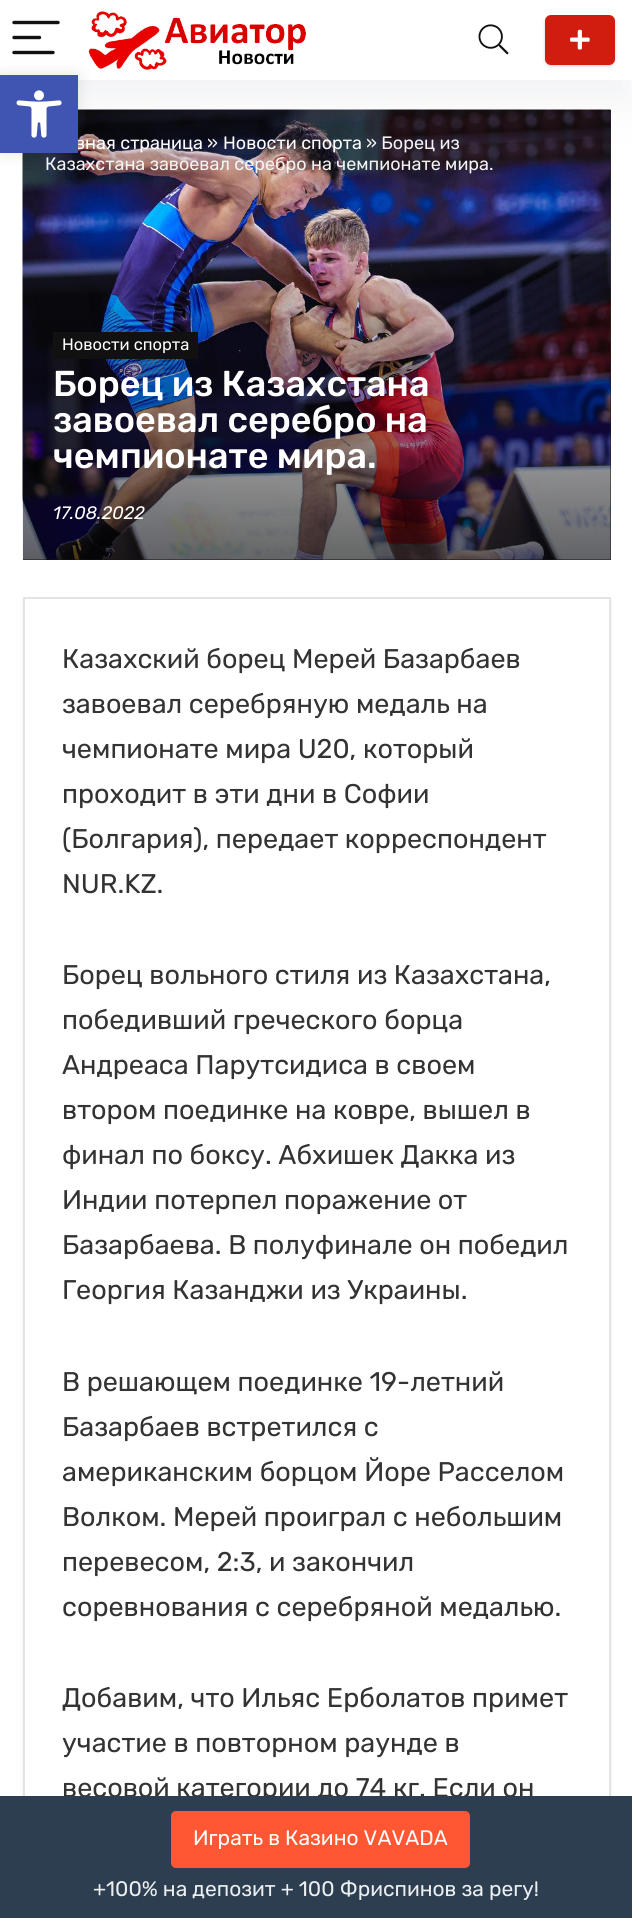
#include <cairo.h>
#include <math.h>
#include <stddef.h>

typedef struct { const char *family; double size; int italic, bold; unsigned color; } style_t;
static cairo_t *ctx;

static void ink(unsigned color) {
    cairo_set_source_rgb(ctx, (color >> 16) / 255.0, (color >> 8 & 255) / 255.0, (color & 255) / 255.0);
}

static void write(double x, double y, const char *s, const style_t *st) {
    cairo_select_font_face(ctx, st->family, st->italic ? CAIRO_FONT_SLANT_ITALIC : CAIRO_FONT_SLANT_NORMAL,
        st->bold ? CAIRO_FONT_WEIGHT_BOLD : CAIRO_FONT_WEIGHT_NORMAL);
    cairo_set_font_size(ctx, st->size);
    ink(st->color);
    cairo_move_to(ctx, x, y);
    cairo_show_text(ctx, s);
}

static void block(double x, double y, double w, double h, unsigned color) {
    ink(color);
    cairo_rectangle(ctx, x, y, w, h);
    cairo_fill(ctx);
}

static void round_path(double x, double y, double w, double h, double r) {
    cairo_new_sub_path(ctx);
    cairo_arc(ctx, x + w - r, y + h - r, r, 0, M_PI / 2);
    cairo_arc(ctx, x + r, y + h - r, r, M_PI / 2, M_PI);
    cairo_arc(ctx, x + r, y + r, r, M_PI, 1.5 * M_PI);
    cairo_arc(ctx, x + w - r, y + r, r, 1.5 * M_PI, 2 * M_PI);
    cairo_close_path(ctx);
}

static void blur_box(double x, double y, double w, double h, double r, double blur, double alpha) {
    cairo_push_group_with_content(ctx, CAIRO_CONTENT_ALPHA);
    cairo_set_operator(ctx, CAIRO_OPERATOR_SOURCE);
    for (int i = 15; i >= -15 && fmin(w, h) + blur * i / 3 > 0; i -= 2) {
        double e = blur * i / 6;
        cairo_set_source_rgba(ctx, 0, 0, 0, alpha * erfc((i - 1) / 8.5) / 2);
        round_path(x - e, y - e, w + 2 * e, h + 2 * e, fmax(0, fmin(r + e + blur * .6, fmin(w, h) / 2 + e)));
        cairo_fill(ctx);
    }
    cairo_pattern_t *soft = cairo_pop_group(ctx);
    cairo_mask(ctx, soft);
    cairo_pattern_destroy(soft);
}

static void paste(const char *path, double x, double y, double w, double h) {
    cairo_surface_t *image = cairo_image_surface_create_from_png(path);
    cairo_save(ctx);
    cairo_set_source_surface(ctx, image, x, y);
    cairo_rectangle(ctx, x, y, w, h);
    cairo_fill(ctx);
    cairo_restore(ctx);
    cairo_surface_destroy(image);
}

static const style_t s1 = {"Rubik", 18, 0, 0, 0xffffff};
static const style_t s2 = {"Rubik", 18, 0, 0, 0xf4f4f4};
static const style_t s3 = {"Rubik", 16.5, 0, 0, 0xffffff};
static const style_t s4 = {"Rubik Medium", 36, 0, 0, 0xffffff};
static const style_t s5 = {"Rubik", 18, 1, 0, 0xffffff};
static const style_t s6 = {"Rubik", 27, 0, 0, 0x333333};
static const style_t s7 = {"Rubik", 21, 0, 0, 0xffffff};
static const style_t s8 = {"Rubik", 21, 0, 0, 0xeceff1};

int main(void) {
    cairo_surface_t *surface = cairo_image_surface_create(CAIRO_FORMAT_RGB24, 632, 1918);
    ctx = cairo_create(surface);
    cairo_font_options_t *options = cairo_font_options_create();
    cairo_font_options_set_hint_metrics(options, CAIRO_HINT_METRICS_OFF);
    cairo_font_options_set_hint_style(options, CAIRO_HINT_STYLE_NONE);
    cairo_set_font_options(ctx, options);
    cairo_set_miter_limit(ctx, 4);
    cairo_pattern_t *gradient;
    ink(0xffffff);
    cairo_paint(ctx);
    block(23, 110, 588, 450, 0x333333);
    paste("pic5.png", 22, 109, 589, 451);
    gradient = cairo_pattern_create_linear(316, 109, 317, 560);
    cairo_pattern_add_color_stop_rgba(gradient, 0, 0, 0, 0, 0.3);
    cairo_pattern_add_color_stop_rgba(gradient, 0.18, 0, 0, 0, 0);
    cairo_pattern_add_color_stop_rgba(gradient, 0.28, 0, 0, 0, 0);
    cairo_pattern_add_color_stop_rgba(gradient, 1, 0, 0, 0, 0.6);
    cairo_set_source(ctx, gradient);
    cairo_pattern_destroy(gradient);
    cairo_rectangle(ctx, 23, 110, 588, 450);
    cairo_fill(ctx);
    cairo_save(ctx);
    cairo_set_fill_rule(ctx, CAIRO_FILL_RULE_EVEN_ODD);
    cairo_new_path(ctx);
    cairo_move_to(ctx, 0, 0);
    cairo_line_to(ctx, 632, 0);
    cairo_line_to(ctx, 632, 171);
    cairo_line_to(ctx, 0, 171);
    cairo_close_path(ctx);
    cairo_move_to(ctx, 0, 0);
    cairo_line_to(ctx, 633, 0);
    cairo_line_to(ctx, 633, 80);
    cairo_line_to(ctx, 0, 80);
    cairo_close_path(ctx);
    cairo_clip(ctx);
    ink(0x777b92);
    blur_box(0, 23, 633, 79, 0, 22.5, 0.1);
    cairo_restore(ctx);
    cairo_new_path(ctx);
    cairo_move_to(ctx, 14, 22.5);
    cairo_line_to(ctx, 58, 22.5);
    cairo_move_to(ctx, 14, 37.5);
    cairo_line_to(ctx, 39.5, 37.5);
    cairo_move_to(ctx, 14, 52.5);
    cairo_line_to(ctx, 53, 52.5);
    ink(0x111111);
    cairo_set_line_width(ctx, 3.4);
    cairo_set_line_cap(ctx, CAIRO_LINE_CAP_ROUND);
    cairo_stroke(ctx);
    paste("pic2.png", 88, 11, 218, 59);
    ink(0x000000);
    blur_box(0, 75, 78, 78, 0, 7.5, 0.1);
    write(75, 149, "вная страница", &s1);
    block(0, 75, 78, 78, 0x4054b2);
    paste("pic1.png", 16, 90, 46, 48);
    paste("pic3.png", 478, 24, 31, 31);
    ink(0x000000);
    blur_box(545, 17, 70, 49, 6, 1.5, 0.2);
    ink(0xd01d10);
    round_path(546, 16, 68, 48, 5);
    cairo_fill_preserve(ctx);
    cairo_set_line_width(ctx, 2);
    cairo_set_line_cap(ctx, CAIRO_LINE_CAP_BUTT);
    cairo_stroke(ctx);
    paste("pic4.png", 570, 29, 20, 21);
    write(207, 149, "»", &s2);
    write(223, 149, "Новости спорта", &s1);
    write(366, 149, "» Борец из", &s2);
    write(45, 170, "Казахстана завоевал серебро на чемпионате мира.", &s2);
    block(53, 332, 145, 27, 0x111111);
    write(62, 350, "Новости спорта", &s3);
    write(53, 396, "Борец из Казахстана", &s4);
    write(53, 432, "завоевал серебро на", &s4);
    write(53, 468, "чемпионате мира.", &s4);
    write(53, 519, "17.08.2022", &s5);
    ink(0xececec);
    blur_box(23, 600, 588, 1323, 0, 1.5, 1);
    block(25, 599, 584, 1197, 0xffffff);
    cairo_rectangle(ctx, 24, 598, 586, 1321);
    ink(0xe3e3e3);
    cairo_stroke(ctx);
    write(62, 668, "Казахский борец Мерей Базарбаев", &s6);
    write(62, 713, "завоевал серебряную медаль на", &s6);
    write(62, 758, "чемпионате мира U20, который", &s6);
    write(62, 803, "проходит в эти дни в Софии", &s6);
    write(62, 848, "(Болгария), передает корреспондент", &s6);
    write(62, 893, "NUR.KZ.", &s6);
    write(62, 984, "Борец вольного стиля из Казахстана,", &s6);
    write(62, 1029, "победивший греческого борца", &s6);
    write(62, 1074, "Андреаса Парутсидиса в своем", &s6);
    write(62, 1119, "втором поединке на ковре, вышел в", &s6);
    write(62, 1164, "финал по боксу. Абхишек Дакка из", &s6);
    write(62, 1209, "Индии потерпел поражение от", &s6);
    write(62, 1254, "Базарбаева. В полуфинале он победил", &s6);
    write(62, 1299, "Георгия Казанджи из Украины.", &s6);
    write(62, 1391, "В решающем поединке 19-летний", &s6);
    write(62, 1436, "Базарбаев встретился с", &s6);
    write(62, 1481, "американским борцом Йоре Расселом", &s6);
    write(62, 1526, "Волком. Мерей проиграл с небольшим", &s6);
    write(62, 1571, "перевесом, 2:3, и закончил", &s6);
    write(62, 1616, "соревнования с серебряной медалью.", &s6);
    write(62, 1707, "Добавим, что Ильяс Ерболатов примет", &s6);
    write(62, 1752, "участие в повторном раунде в", &s6);
    write(62, 1797, "весовой категории до 74 кг. Если он", &s6);
    block(0, 1796, 632, 122, 0x2d3e50);
    ink(0xff5733);
    round_path(171, 1811, 299, 57, 5);
    cairo_fill(ctx);
    write(193, 1845, "Играть в Казино VAVADA", &s7);
    write(93, 1896, "+100% на депозит + 100 Фриспинов за регу!", &s8);
    cairo_surface_write_to_png(surface, "screenshot.png");
    cairo_font_options_destroy(options);
    cairo_destroy(ctx);
    cairo_surface_destroy(surface);
    return 0;
}
